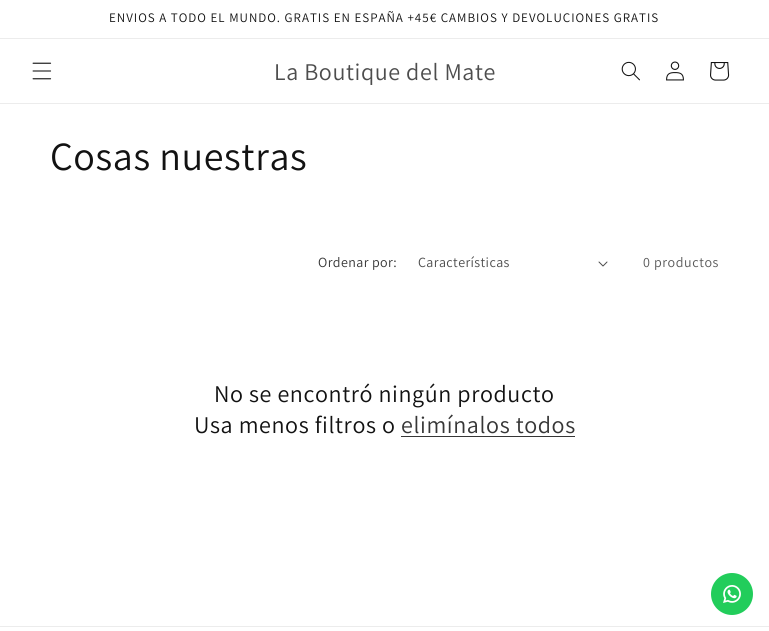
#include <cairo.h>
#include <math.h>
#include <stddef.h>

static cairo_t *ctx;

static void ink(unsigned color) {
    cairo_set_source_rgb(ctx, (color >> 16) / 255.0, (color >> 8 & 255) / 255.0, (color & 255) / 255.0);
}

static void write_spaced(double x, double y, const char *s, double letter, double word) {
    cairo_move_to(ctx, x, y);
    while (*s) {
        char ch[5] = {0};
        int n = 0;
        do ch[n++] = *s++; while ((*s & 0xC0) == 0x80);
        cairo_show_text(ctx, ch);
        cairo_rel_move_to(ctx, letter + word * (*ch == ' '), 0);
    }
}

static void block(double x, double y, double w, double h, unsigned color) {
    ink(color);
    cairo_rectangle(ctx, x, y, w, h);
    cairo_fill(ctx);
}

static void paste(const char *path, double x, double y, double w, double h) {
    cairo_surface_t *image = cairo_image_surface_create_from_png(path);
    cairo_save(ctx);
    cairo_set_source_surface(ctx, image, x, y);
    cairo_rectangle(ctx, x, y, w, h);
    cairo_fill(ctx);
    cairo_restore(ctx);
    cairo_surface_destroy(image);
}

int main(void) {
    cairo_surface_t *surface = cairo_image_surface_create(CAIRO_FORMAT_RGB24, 769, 631);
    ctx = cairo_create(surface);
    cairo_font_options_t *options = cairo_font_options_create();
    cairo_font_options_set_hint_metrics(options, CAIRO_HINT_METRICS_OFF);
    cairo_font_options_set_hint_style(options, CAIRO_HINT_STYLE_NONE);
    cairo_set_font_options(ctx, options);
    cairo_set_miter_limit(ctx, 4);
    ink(0xffffff);
    cairo_paint(ctx);
    block(0, 38, 769, 1, 0xececec);
    cairo_select_font_face(ctx, "Assistant", CAIRO_FONT_SLANT_NORMAL, CAIRO_FONT_WEIGHT_NORMAL);
    cairo_set_font_size(ctx, 13);
    ink(0x121212);
    write_spaced(109, 22, "ENVIOS A TODO EL MUNDO. GRATIS EN ESPAÑA +45€ CAMBIOS Y DEVOLUCIONES GRATIS", 1, 0);
    block(0, 103, 769, 1, 0xececec);
    paste("pic1.png", 32, 62, 20, 18);
    cairo_set_font_size(ctx, 24);
    ink(0x4d4d4d);
    write_spaced(274, 80, "La Boutique del Mate", 0.6, 0);
    paste("pic2.png", 621, 61, 19, 20);
    paste("pic3.png", 666, 61, 18, 20);
    paste("pic4.png", 710, 62, 20, 19);
    cairo_set_font_size(ctx, 40);
    ink(0x121212);
    write_spaced(50, 170, "Cosas nuestras", 0.6, 0);
    cairo_set_font_size(ctx, 14);
    ink(0x363636);
    write_spaced(318, 267, "Ordenar por:", 0.4, 0);
    ink(0x4d4d4d);
    write_spaced(418, 267, "Características", 0.4, 0);
    paste("pic5.png", 598, 261, 10, 6);
    ink(0x595959);
    write_spaced(643, 267, "0 productos", 0.6, 0);
    cairo_set_font_size(ctx, 24);
    ink(0x121212);
    write_spaced(214, 402, "No se encontró ningún producto", 0.6, 0);
    write_spaced(194, 433, "Usa menos filtros o", 0.6, 0);
    ink(0x363636);
    write_spaced(401, 433, "elimínalos todos", 0.6, 0);
    block(401, 436, 174, 1, 0x363636);
    ink(0x22cd5b);
    cairo_new_path(ctx);
    cairo_arc(ctx, 732, 594, 21, 0, 2 * M_PI);
    cairo_fill(ctx);
    paste("pic6.png", 723, 585, 18, 18);
    block(0, 626, 769, 1, 0xececec);
    cairo_surface_write_to_png(surface, "screenshot.png");
    cairo_font_options_destroy(options);
    cairo_destroy(ctx);
    cairo_surface_destroy(surface);
    return 0;
}
